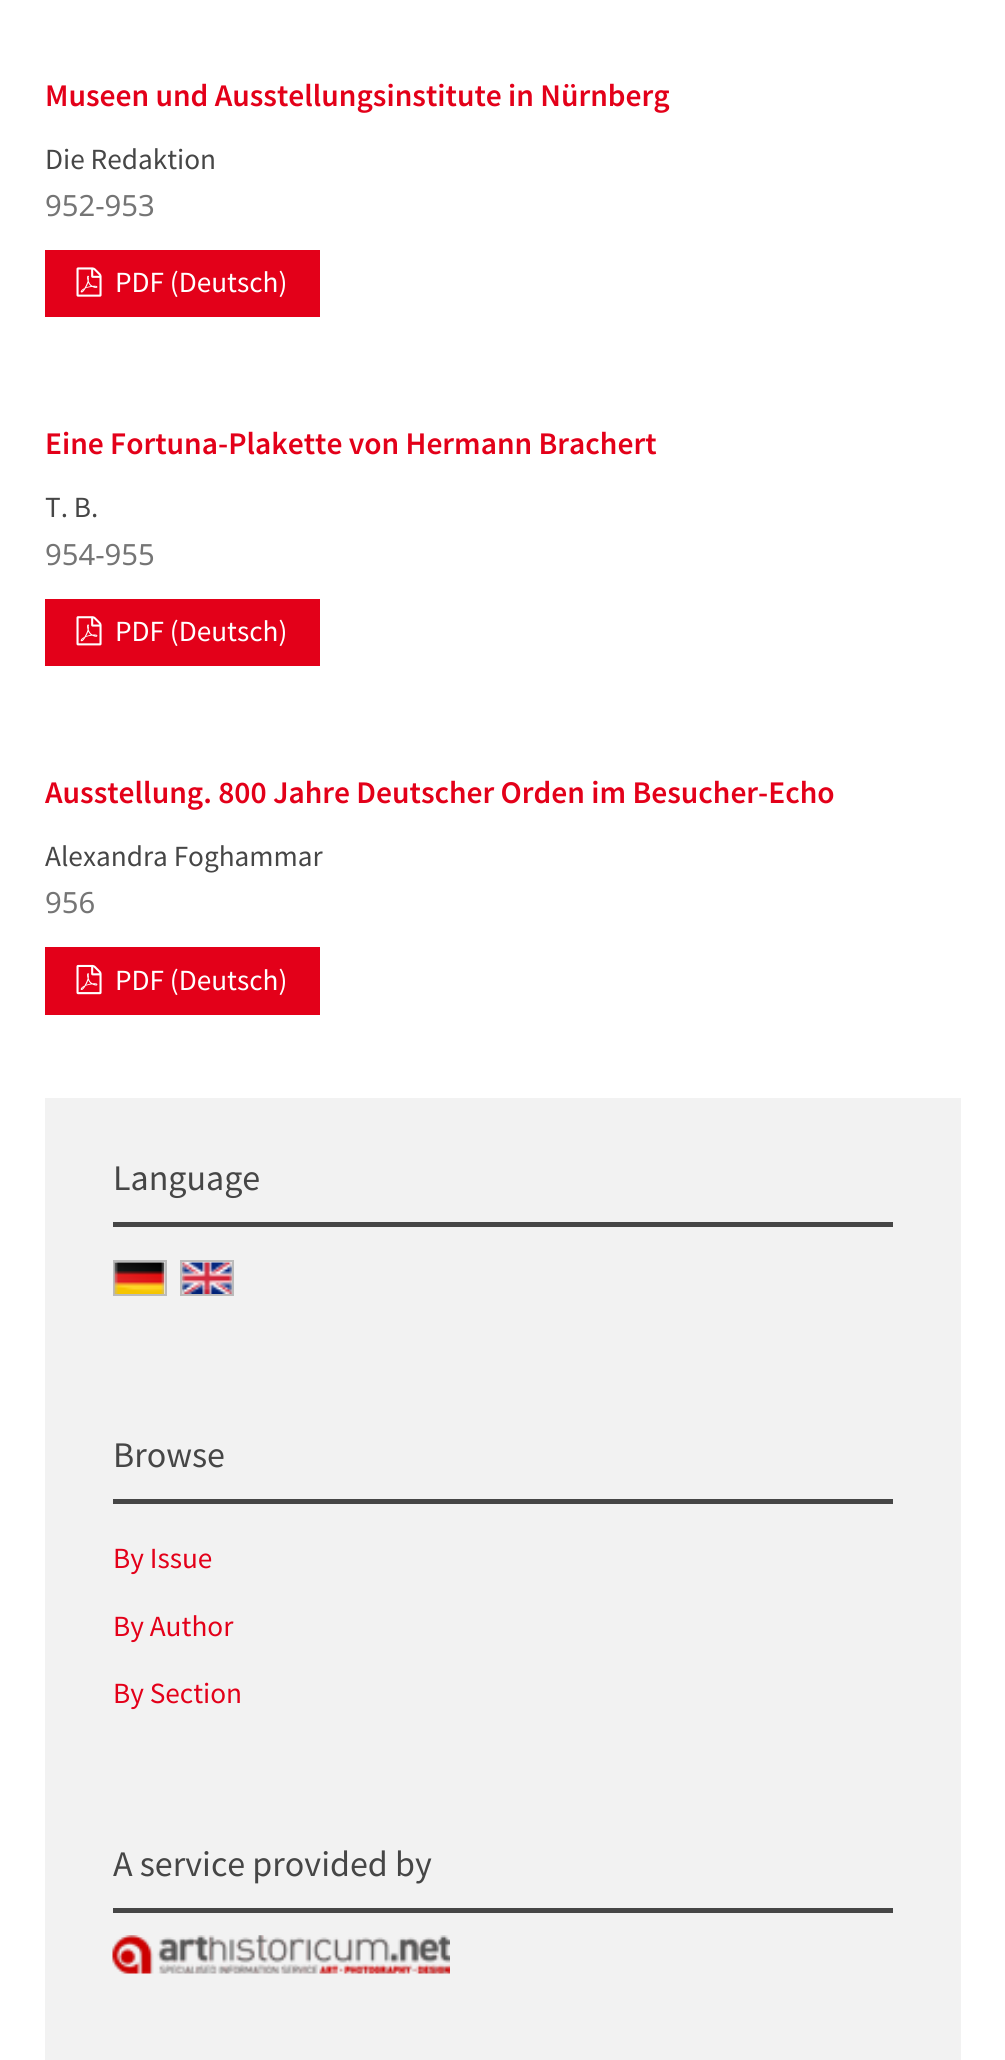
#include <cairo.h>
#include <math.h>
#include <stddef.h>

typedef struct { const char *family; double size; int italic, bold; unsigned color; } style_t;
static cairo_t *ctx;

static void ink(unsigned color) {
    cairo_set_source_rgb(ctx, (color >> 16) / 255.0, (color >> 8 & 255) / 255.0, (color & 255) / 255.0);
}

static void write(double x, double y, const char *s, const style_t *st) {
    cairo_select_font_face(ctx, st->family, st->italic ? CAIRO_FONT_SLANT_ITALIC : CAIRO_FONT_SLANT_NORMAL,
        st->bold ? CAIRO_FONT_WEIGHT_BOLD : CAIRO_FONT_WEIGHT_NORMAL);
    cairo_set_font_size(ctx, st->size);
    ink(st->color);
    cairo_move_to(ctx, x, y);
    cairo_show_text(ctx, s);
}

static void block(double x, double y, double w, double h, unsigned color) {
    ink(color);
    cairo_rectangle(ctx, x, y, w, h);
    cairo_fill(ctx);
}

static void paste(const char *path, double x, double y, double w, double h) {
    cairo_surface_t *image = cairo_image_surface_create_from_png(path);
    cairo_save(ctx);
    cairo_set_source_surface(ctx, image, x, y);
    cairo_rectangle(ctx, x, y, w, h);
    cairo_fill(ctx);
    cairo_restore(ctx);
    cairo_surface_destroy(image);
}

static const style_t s1 = {"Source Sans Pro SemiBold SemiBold", 31.5, 0, 0, 0xe30019};
static const style_t s2 = {"Source Sans Pro", 29.25, 0, 0, 0x464646};
static const style_t s3 = {"Noto Sans", 29.25, 0, 0, 0x757575};
static const style_t s4 = {"Source Sans Pro", 29.25, 0, 0, 0xffffff};
static const style_t s5 = {"Source Sans Pro", 36, 0, 0, 0x464646};
static const style_t s6 = {"Source Sans Pro", 29.25, 0, 0, 0xe30019};

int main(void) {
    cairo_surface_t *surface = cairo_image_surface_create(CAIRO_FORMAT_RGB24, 1005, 2060);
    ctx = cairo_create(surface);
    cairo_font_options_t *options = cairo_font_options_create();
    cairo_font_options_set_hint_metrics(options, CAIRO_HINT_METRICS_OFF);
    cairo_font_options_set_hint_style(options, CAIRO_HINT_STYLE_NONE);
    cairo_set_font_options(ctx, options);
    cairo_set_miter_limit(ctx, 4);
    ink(0xffffff);
    cairo_paint(ctx);
    write(45, 106, "Museen und Ausstellungsinstitute in Nürnberg", &s1);
    write(45, 169, "Die Redaktion", &s2);
    write(45, 216, "952-953", &s3);
    block(45, 250, 275, 67, 0xe30019);
    paste("pic1.png", 76, 267, 26, 30);
    write(115, 292, "PDF (Deutsch)", &s4);
    write(45, 454, "Eine Fortuna-Plakette von Hermann Brachert", &s1);
    write(45, 517, "T. B.", &s2);
    write(45, 565, "954-955", &s3);
    block(45, 599, 275, 67, 0xe30019);
    paste("pic2.png", 76, 616, 26, 30);
    write(115, 641, "PDF (Deutsch)", &s4);
    write(45, 803, "Ausstellung. 800 Jahre Deutscher Orden im Besucher-Echo", &s1);
    write(45, 866, "Alexandra Foghammar", &s2);
    write(45, 913, "956", &s3);
    block(45, 947, 275, 68, 0xe30019);
    paste("pic3.png", 76, 964, 26, 31);
    write(115, 990, "PDF (Deutsch)", &s4);
    block(45, 1098, 916, 962, 0xf2f2f2);
    block(113, 1222, 780, 5, 0x464646);
    write(113, 1190, "Language", &s5);
    cairo_rectangle(ctx, 114, 1261, 52, 34);
    ink(0xbbbbbb);
    cairo_stroke(ctx);
    paste("pic4.png", 114, 1262, 51, 32);
    cairo_rectangle(ctx, 181, 1261, 52, 34);
    cairo_stroke(ctx);
    paste("pic5.png", 182, 1262, 50, 32);
    block(113, 1499, 780, 5, 0x464646);
    write(113, 1467, "Browse", &s5);
    write(113, 1568, "By Issue", &s6);
    write(113, 1636, "By Author", &s6);
    write(113, 1703, "By Section", &s6);
    block(113, 1908, 780, 5, 0x464646);
    write(113, 1876, "A service provided by", &s5);
    paste("pic6.png", 112, 1935, 338, 39);
    cairo_surface_write_to_png(surface, "screenshot.png");
    cairo_font_options_destroy(options);
    cairo_destroy(ctx);
    cairo_surface_destroy(surface);
    return 0;
}
